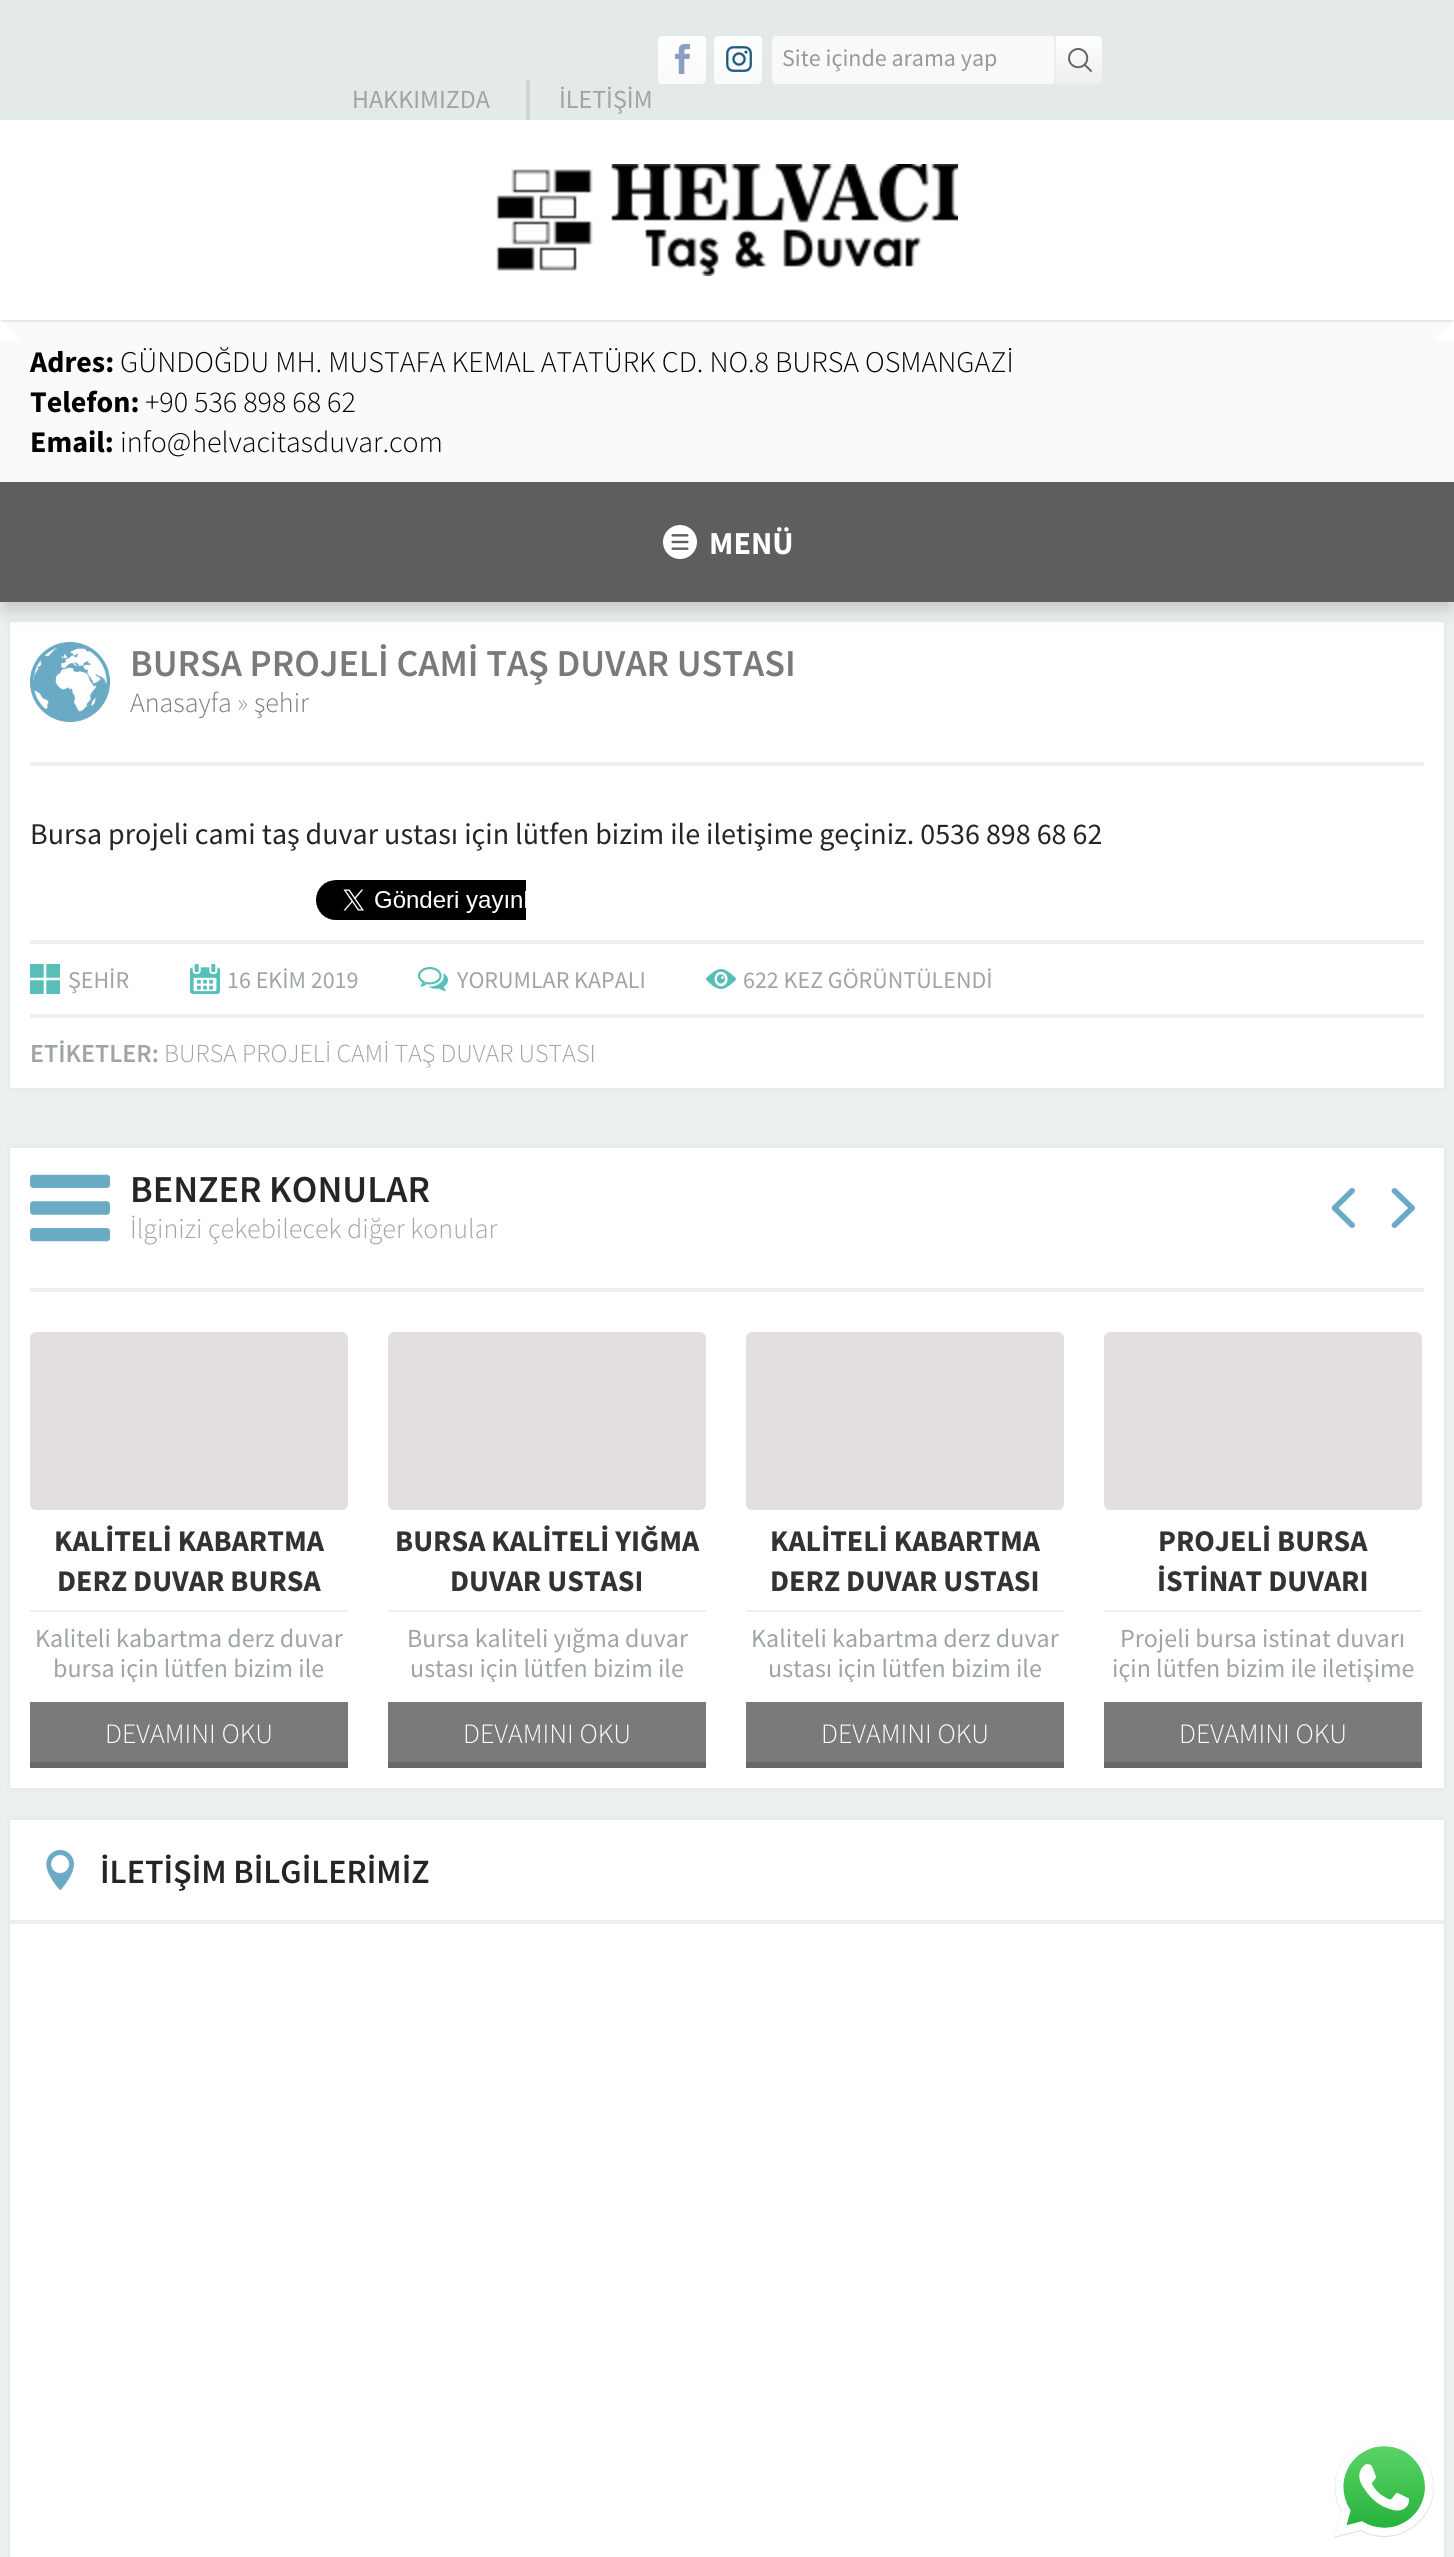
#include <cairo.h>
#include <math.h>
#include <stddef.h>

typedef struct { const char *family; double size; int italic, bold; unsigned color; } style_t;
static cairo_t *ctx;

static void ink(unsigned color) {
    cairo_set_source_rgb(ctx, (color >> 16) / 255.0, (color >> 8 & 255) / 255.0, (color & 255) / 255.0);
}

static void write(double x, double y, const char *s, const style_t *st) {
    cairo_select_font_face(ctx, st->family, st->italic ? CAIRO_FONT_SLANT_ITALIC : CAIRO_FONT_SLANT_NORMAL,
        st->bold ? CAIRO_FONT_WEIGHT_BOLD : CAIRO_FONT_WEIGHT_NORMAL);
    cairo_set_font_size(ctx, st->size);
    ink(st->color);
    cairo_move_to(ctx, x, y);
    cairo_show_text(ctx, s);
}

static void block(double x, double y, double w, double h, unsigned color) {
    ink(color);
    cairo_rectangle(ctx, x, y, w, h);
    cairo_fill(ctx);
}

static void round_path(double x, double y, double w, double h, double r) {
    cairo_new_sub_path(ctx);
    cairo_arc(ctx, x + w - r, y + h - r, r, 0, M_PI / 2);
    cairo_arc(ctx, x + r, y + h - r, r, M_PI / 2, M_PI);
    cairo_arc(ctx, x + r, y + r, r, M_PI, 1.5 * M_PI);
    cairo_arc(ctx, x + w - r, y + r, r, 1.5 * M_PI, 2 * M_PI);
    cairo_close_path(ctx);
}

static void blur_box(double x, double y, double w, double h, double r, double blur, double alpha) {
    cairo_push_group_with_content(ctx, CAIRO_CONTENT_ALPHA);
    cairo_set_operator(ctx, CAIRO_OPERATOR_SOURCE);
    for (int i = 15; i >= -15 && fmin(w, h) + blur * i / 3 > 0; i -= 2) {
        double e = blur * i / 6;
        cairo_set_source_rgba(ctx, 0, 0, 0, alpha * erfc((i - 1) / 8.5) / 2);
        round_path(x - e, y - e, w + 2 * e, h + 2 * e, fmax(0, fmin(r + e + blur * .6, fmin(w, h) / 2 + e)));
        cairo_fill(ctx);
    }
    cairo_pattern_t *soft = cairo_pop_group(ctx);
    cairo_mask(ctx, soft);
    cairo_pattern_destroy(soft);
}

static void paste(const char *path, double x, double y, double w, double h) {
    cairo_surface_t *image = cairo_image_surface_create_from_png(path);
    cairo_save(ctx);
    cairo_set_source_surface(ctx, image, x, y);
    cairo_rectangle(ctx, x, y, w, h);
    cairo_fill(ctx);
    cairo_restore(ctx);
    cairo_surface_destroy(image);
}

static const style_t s1 = {"Source Sans Pro", 24, 0, 0, 0x999999};
static const style_t s2 = {"Source Sans Pro", 26, 0, 0, 0x9fa4a4};
static const style_t s3 = {"Source Sans Pro", 30, 0, 1, 0x000000};
static const style_t s4 = {"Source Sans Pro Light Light", 30, 0, 0, 0x000000};
static const style_t s5 = {"Source Sans Pro", 32, 0, 1, 0xffffff};
static const style_t s6 = {"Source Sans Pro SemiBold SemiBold", 38, 0, 0, 0x7a7a7a};
static const style_t s7 = {"Source Sans Pro Light Light", 28, 0, 0, 0x7a7a7a};
static const style_t s8 = {"Source Sans Pro Light Light", 28, 0, 0, 0x9fa4a4};
static const style_t s9 = {"Source Sans Pro", 30, 0, 0, 0x252525};
static const style_t s10 = {"Source Sans Pro", 24, 0, 0, 0x9fa4a4};
static const style_t s11 = {"Source Sans Pro SemiBold SemiBold", 26, 0, 0, 0x9fa4a4};
static const style_t s12 = {"Source Sans Pro Light Light", 26, 0, 0, 0x9fa4a4};
static const style_t s13 = {"Source Sans Pro SemiBold SemiBold", 38, 0, 0, 0x252525};
static const style_t s14 = {"Source Sans Pro", 30, 0, 1, 0x333333};
static const style_t s15 = {"Source Sans Pro Light Light", 28, 0, 0, 0xffffff};
static const style_t s16 = {"Source Sans Pro SemiBold SemiBold", 34, 0, 0, 0x252525};

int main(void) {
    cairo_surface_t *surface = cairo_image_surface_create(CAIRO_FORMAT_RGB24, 1454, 2557);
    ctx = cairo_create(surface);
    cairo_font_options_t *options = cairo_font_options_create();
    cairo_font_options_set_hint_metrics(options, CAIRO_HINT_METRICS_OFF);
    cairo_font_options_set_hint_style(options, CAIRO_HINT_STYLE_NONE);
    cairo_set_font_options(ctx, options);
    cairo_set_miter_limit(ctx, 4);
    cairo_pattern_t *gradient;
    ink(0xecf0f1);
    cairo_paint(ctx);
    block(0, 120, 1454, 200, 0xffffff);
    block(0, 0, 1454, 120, 0xe4e9e9);
    gradient = cairo_pattern_create_linear(682, 84, 682, 36);
    cairo_pattern_add_color_stop_rgba(gradient, 0, 0.98, 0.98, 0.98, 1);
    cairo_pattern_add_color_stop_rgba(gradient, 1, 1, 1, 1, 1);
    cairo_set_source(ctx, gradient);
    cairo_pattern_destroy(gradient);
    round_path(658, 36, 48, 48, 4);
    cairo_fill(ctx);
    paste("pic1.png", 675, 44, 15, 30);
    gradient = cairo_pattern_create_linear(738, 84, 738, 36);
    cairo_pattern_add_color_stop_rgba(gradient, 0, 0.98, 0.98, 0.98, 1);
    cairo_pattern_add_color_stop_rgba(gradient, 1, 1, 1, 1, 1);
    cairo_set_source(ctx, gradient);
    cairo_pattern_destroy(gradient);
    round_path(714, 36, 48, 48, 4);
    cairo_fill(ctx);
    paste("pic2.png", 726, 46, 26, 26);
    ink(0xf9f9f9);
    round_path(772, 36, 330, 48, 4);
    cairo_fill(ctx);
    write(782, 66, "Site içinde arama yap", &s1);
    gradient = cairo_pattern_create_linear(1079, 36, 1079, 84);
    cairo_pattern_add_color_stop_rgba(gradient, 0, 1, 1, 1, 1);
    cairo_pattern_add_color_stop_rgba(gradient, 1, 0.933, 0.933, 0.933, 1);
    cairo_set_source(ctx, gradient);
    cairo_pattern_destroy(gradient);
    cairo_new_path(ctx);
    cairo_move_to(ctx, 1054, 36);
    cairo_line_to(ctx, 1098, 36);
    cairo_curve_to(ctx, 1100, 36, 1102, 38, 1102, 40);
    cairo_line_to(ctx, 1102, 80);
    cairo_curve_to(ctx, 1102, 82, 1100, 84, 1098, 84);
    cairo_line_to(ctx, 1054, 84);
    cairo_close_path(ctx);
    cairo_fill(ctx);
    block(1054, 36, 2, 48, 0xecebeb);
    paste("pic3.png", 1068, 48, 24, 24);
    write(352, 108, "HAKKIMIZDA", &s2);
    block(526, 80, 4, 40, 0xcfd6d6);
    write(559, 108, "İLETİŞİM", &s2);
    paste("pic4.png", 496, 164, 462, 112);
    ink(0x000000);
    blur_box(10, 622, 1434, 466, 0, 3, 0.06);
    block(10, 622, 1434, 466, 0xffffff);
    ink(0x000000);
    blur_box(4, 496, 1446, 112, 0, 10, 0.2);
    block(0, 322, 1454, 160, 0xfafafa);
    block(0, 320, 1454, 2, 0xe4e9e9);
    ink(0xffffff);
    cairo_new_path(ctx);
    cairo_move_to(ctx, 0, 340);
    cairo_line_to(ctx, 0, 320);
    cairo_line_to(ctx, 20, 340);
    cairo_close_path(ctx);
    cairo_fill(ctx);
    cairo_new_path(ctx);
    cairo_move_to(ctx, 1454, 340);
    cairo_line_to(ctx, 1434, 340);
    cairo_line_to(ctx, 1454, 320);
    cairo_close_path(ctx);
    cairo_fill(ctx);
    write(30, 372, "Adres:", &s3);
    write(120, 372, "GÜNDOĞDU MH. MUSTAFA KEMAL ATATÜRK CD. NO.8 BURSA OSMANGAZİ", &s4);
    write(30, 412, "Telefon:", &s3);
    write(145, 412, "+90 536 898 68 62", &s4);
    write(30, 452, "Email:", &s3);
    write(120, 452, "info@helvacitasduvar.com", &s4);
    block(0, 482, 1454, 120, 0x5e5e5e);
    paste("pic5.png", 663, 525, 34, 34);
    write(709, 554, "MENÜ", &s5);
    block(30, 762, 1394, 4, 0xecf0f1);
    paste("pic6.png", 30, 642, 80, 80);
    write(130, 676, "BURSA PROJELİ CAMİ TAŞ DUVAR USTASI", &s6);
    write(130, 712, "Anasayfa", &s7);
    write(237, 712, "»", &s8);
    write(254, 712, "şehir", &s7);
    write(30, 844, "Bursa projeli cami taş duvar ustası için lütfen bizim ile iletişime geçiniz. 0536 898 68 62", &s9);
    paste("pic7.png", 316, 880, 210, 40);
    block(30, 940, 1394, 4, 0xecf0f1);
    block(30, 1014, 1394, 4, 0xecf0f1);
    paste("pic8.png", 30, 964, 30, 30);
    write(68, 988, "ŞEHİR", &s10);
    paste("pic9.png", 190, 964, 30, 30);
    write(227, 988, "16 EKİM 2019", &s10);
    paste("pic10.png", 418, 967, 30, 24);
    write(457, 988, "YORUMLAR KAPALI", &s10);
    paste("pic11.png", 706, 969, 30, 20);
    write(743, 988, "622 KEZ GÖRÜNTÜLENDİ", &s10);
    write(30, 1062, "ETİKETLER:", &s11);
    write(164, 1062, "BURSA PROJELİ CAMİ TAŞ DUVAR USTASI", &s12);
    ink(0x000000);
    blur_box(10, 1148, 1434, 640, 0, 3, 0.06);
    block(10, 1148, 1434, 640, 0xffffff);
    block(30, 1288, 1394, 4, 0xecf0f1);
    paste("pic12.png", 30, 1174, 80, 68);
    write(130, 1202, "BENZER KONULAR", &s13);
    write(130, 1238, "İlginizi çekebilecek diğer konular", &s8);
    paste("pic13.png", 1331, 1188, 25, 40);
    paste("pic14.png", 1391, 1188, 25, 40);
    paste("pic15.png", 30, 1332, 318, 178);
    write(54, 1551, "KALİTELİ KABARTMA", &s14);
    write(57, 1591, "DERZ DUVAR BURSA", &s14);
    block(30, 1610, 318, 2, 0xecf0f1);
    write(35, 1647, "Kaliteli kabartma derz duvar", &s2);
    cairo_save(ctx);
    cairo_rectangle(ctx, 30, 1612, 318, 70);
    cairo_clip(ctx);
    write(53, 1677, "bursa için lütfen bizim ile", &s2);
    cairo_restore(ctx);
    block(30, 1702, 318, 60, 0x7a7a7a);
    block(30, 1762, 318, 6, 0x686868);
    write(105, 1743, "DEVAMINI OKU", &s15);
    paste("pic15.png", 388, 1332, 318, 178);
    write(395, 1551, "BURSA KALİTELİ YIĞMA", &s14);
    write(450, 1591, "DUVAR USTASI", &s14);
    block(388, 1610, 318, 2, 0xecf0f1);
    write(407, 1647, "Bursa kaliteli yığma duvar", &s2);
    cairo_save(ctx);
    cairo_rectangle(ctx, 388, 1612, 318, 70);
    cairo_clip(ctx);
    write(410, 1677, "ustası için lütfen bizim ile", &s2);
    cairo_restore(ctx);
    block(388, 1702, 318, 60, 0x7a7a7a);
    block(388, 1762, 318, 6, 0x686868);
    write(463, 1743, "DEVAMINI OKU", &s15);
    paste("pic15.png", 746, 1332, 318, 178);
    write(770, 1551, "KALİTELİ KABARTMA", &s14);
    write(770, 1591, "DERZ DUVAR USTASI", &s14);
    block(746, 1610, 318, 2, 0xecf0f1);
    write(751, 1647, "Kaliteli kabartma derz duvar", &s2);
    cairo_save(ctx);
    cairo_rectangle(ctx, 746, 1612, 318, 70);
    cairo_clip(ctx);
    write(768, 1677, "ustası için lütfen bizim ile", &s2);
    cairo_restore(ctx);
    block(746, 1702, 318, 60, 0x7a7a7a);
    block(746, 1762, 318, 6, 0x686868);
    write(821, 1743, "DEVAMINI OKU", &s15);
    paste("pic15.png", 1104, 1332, 318, 178);
    write(1158, 1551, "PROJELİ BURSA", &s14);
    write(1157, 1591, "İSTİNAT DUVARI", &s14);
    block(1104, 1610, 318, 2, 0xecf0f1);
    write(1120, 1647, "Projeli bursa istinat duvarı", &s2);
    cairo_save(ctx);
    cairo_rectangle(ctx, 1104, 1612, 318, 70);
    cairo_clip(ctx);
    write(1112, 1677, "için lütfen bizim ile iletişime", &s2);
    cairo_restore(ctx);
    block(1104, 1702, 318, 60, 0x7a7a7a);
    block(1104, 1762, 318, 6, 0x686868);
    write(1179, 1743, "DEVAMINI OKU", &s15);
    ink(0x000000);
    blur_box(10, 1820, 1434, 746, 0, 3, 0.06);
    block(10, 1820, 1434, 737, 0xffffff);
    block(10, 1920, 1434, 4, 0xecf0f1);
    paste("pic16.png", 46, 1850, 28, 40);
    write(100, 1883, "İLETİŞİM BİLGİLERİMİZ", &s16);
    paste("pic17.png", 1334, 2438, 100, 100);
    cairo_surface_write_to_png(surface, "screenshot.png");
    cairo_font_options_destroy(options);
    cairo_destroy(ctx);
    cairo_surface_destroy(surface);
    return 0;
}
